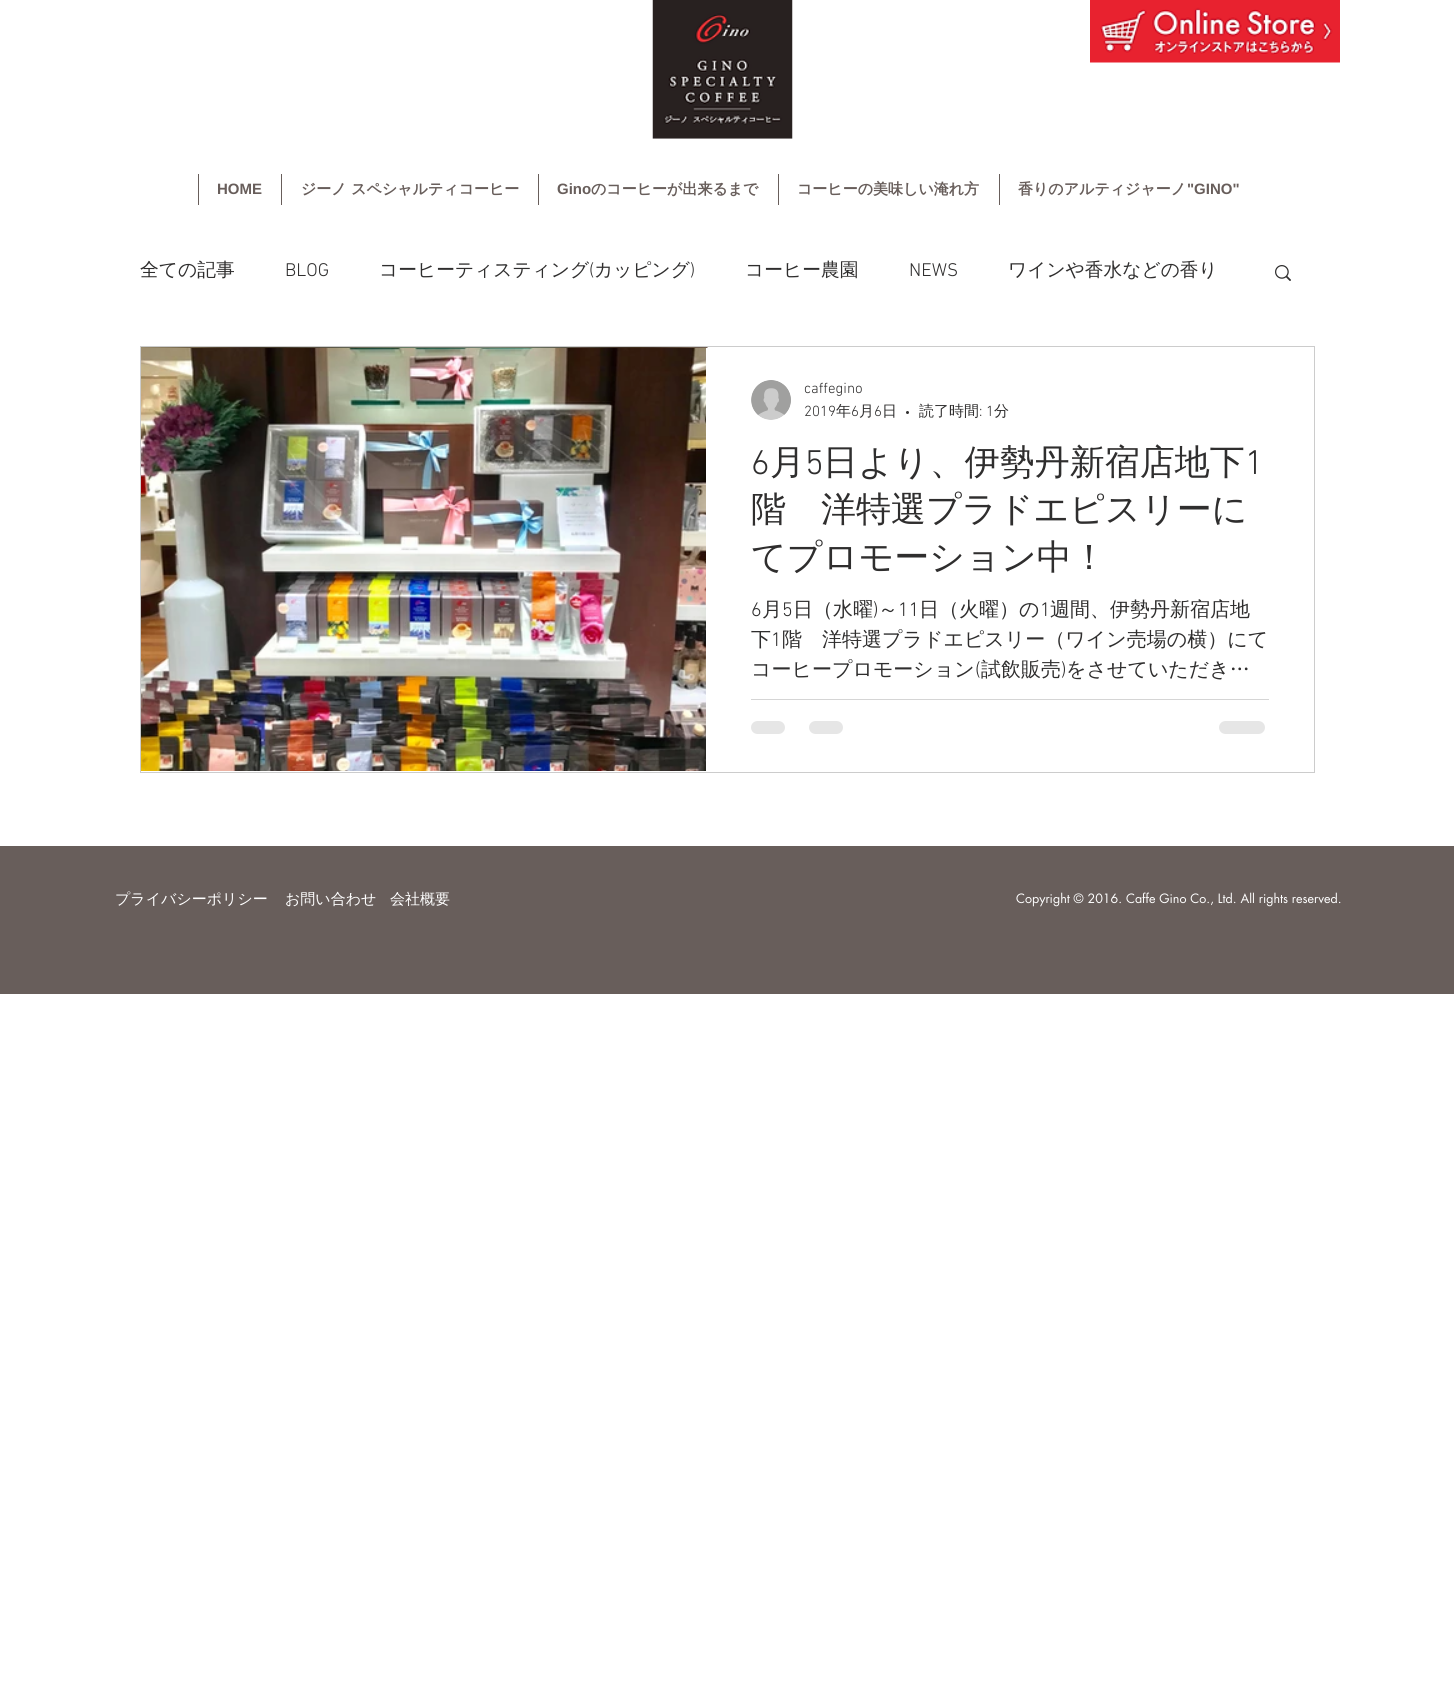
#include <cairo.h>
#include <math.h>
#include <stddef.h>

typedef struct { const char *family; double size; int italic, bold; unsigned color; } style_t;
static cairo_t *ctx;

static void ink(unsigned color) {
    cairo_set_source_rgb(ctx, (color >> 16) / 255.0, (color >> 8 & 255) / 255.0, (color & 255) / 255.0);
}

static void write(double x, double y, const char *s, const style_t *st) {
    cairo_select_font_face(ctx, st->family, st->italic ? CAIRO_FONT_SLANT_ITALIC : CAIRO_FONT_SLANT_NORMAL,
        st->bold ? CAIRO_FONT_WEIGHT_BOLD : CAIRO_FONT_WEIGHT_NORMAL);
    cairo_set_font_size(ctx, st->size);
    ink(st->color);
    cairo_move_to(ctx, x, y);
    cairo_show_text(ctx, s);
}

static void block(double x, double y, double w, double h, unsigned color) {
    ink(color);
    cairo_rectangle(ctx, x, y, w, h);
    cairo_fill(ctx);
}

static void round_path(double x, double y, double w, double h, double r) {
    cairo_new_sub_path(ctx);
    cairo_arc(ctx, x + w - r, y + h - r, r, 0, M_PI / 2);
    cairo_arc(ctx, x + r, y + h - r, r, M_PI / 2, M_PI);
    cairo_arc(ctx, x + r, y + r, r, M_PI, 1.5 * M_PI);
    cairo_arc(ctx, x + w - r, y + r, r, 1.5 * M_PI, 2 * M_PI);
    cairo_close_path(ctx);
}

static void paste(const char *path, double x, double y, double w, double h) {
    cairo_surface_t *image = cairo_image_surface_create_from_png(path);
    cairo_save(ctx);
    cairo_set_source_surface(ctx, image, x, y);
    cairo_rectangle(ctx, x, y, w, h);
    cairo_fill(ctx);
    cairo_restore(ctx);
    cairo_surface_destroy(image);
}

static const style_t s1 = {"Liberation Sans", 15, 0, 1, 0x685e5b};
static const style_t s2 = {"WenQuanYi Zen Hei", 15, 0, 1, 0x685e5b};
static const style_t s3 = {"WenQuanYi Zen Hei Medium", 18.75, 0, 0, 0x2f2e2e};
static const style_t s4 = {"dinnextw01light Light", 18.75, 0, 0, 0x2f2e2e};
static const style_t s5 = {"dinnextw01light Light", 15, 0, 0, 0x2f2e2e};
static const style_t s6 = {"WenQuanYi Zen Hei Medium", 15, 0, 0, 0x2f2e2e};
static const style_t s7 = {"dinnextw01light Light", 35, 0, 0, 0x2f2e2e};
static const style_t s8 = {"WenQuanYi Zen Hei Medium", 35, 0, 0, 0x2f2e2e};
static const style_t s9 = {"dinnextw01light Light", 20, 0, 0, 0x2f2e2e};
static const style_t s10 = {"WenQuanYi Zen Hei Medium", 20, 0, 0, 0x2f2e2e};
static const style_t s11 = {"WenQuanYi Zen Hei Medium", 15, 0, 0, 0xffffff};
static const style_t s12 = {"futura", 12.5, 0, 0, 0xffffff};

int main(void) {
    cairo_surface_t *surface = cairo_image_surface_create(CAIRO_FORMAT_RGB24, 1454, 1683);
    ctx = cairo_create(surface);
    cairo_font_options_t *options = cairo_font_options_create();
    cairo_font_options_set_hint_metrics(options, CAIRO_HINT_METRICS_OFF);
    cairo_font_options_set_hint_style(options, CAIRO_HINT_STYLE_NONE);
    cairo_set_font_options(ctx, options);
    cairo_set_miter_limit(ctx, 4);
    ink(0xffffff);
    cairo_paint(ctx);
    paste("pic1.png", 652, 0, 141, 139);
    paste("pic2.png", 1090, 0, 250, 63);
    block(198, 174, 1, 31, 0x685e5b);
    write(217, 194, "HOME", &s1);
    block(281, 174, 1, 31, 0x685e5b);
    write(301, 194, "ジーノ スペシャルティコーヒー", &s2);
    block(538, 174, 1, 31, 0x685e5b);
    write(557, 194, "Gino", &s1);
    write(591, 194, "のコーヒーが出来るまで", &s2);
    block(778, 174, 1, 31, 0x685e5b);
    write(797, 194, "コーヒーの美味しい淹れ方", &s2);
    block(999, 174, 1, 31, 0x685e5b);
    write(1018, 194, "香りのアルティジャーノ", &s2);
    write(1187, 194, "\"GINO\"", &s1);
    write(140, 276, "全ての記事", &s3);
    write(285, 276, "BLOG", &s4);
    write(379, 276, "コーヒーティスティング", &s3);
    write(589, 276, "(", &s4);
    write(594, 276, "カッピング", &s3);
    write(690, 276, ")", &s4);
    write(745, 276, "コーヒー農園", &s3);
    write(909, 276, "NEWS", &s4);
    write(1008, 276, "ワインや香水などの香り", &s3);
    paste("pic3.png", 1275, 265, 16, 16);
    cairo_rectangle(ctx, 140.5, 346.5, 1174, 426);
    ink(0xcccccc);
    cairo_set_line_width(ctx, 1);
    cairo_stroke(ctx);
    paste("pic4.png", 141, 347, 567, 1);
    paste("pic5.png", 141, 348, 565, 423);
    paste("pic6.png", 751, 380, 40, 40);
    write(804, 393, "caffegino", &s5);
    write(804, 416, "2019", &s5);
    write(836, 416, "年", &s6);
    write(851, 416, "6", &s5);
    write(859, 416, "月", &s6);
    write(874, 416, "6", &s5);
    write(882, 416, "日", &s6);
    cairo_new_path(ctx);
    cairo_arc(ctx, 907.5, 412.5, 1.5, 0, 2 * M_PI);
    cairo_fill(ctx);
    write(919, 416, "読了時間", &s6);
    write(979, 416, ": 1", &s5);
    write(994, 416, "分", &s6);
    write(751, 474, "6", &s7);
    write(770, 474, "月", &s8);
    write(805, 474, "5", &s7);
    write(823, 474, "日より、伊勢丹新宿店地下", &s8);
    write(1245, 474, "1", &s7);
    write(751, 521, "階　洋特選プラドエピスリーに", &s8);
    write(751, 569, "てプロモーション中！", &s8);
    write(751, 616, "6", &s9);
    write(762, 616, "月", &s10);
    write(782, 616, "5", &s9);
    write(793, 616, "日（水曜", &s10);
    write(873, 616, ")", &s9);
    write(878, 616, "～", &s10);
    write(898, 616, "11", &s9);
    write(919, 616, "日（火曜）の", &s10);
    write(1040, 616, "1", &s9);
    write(1050, 616, "週間、伊勢丹新宿店地", &s10);
    write(751, 646, "下", &s10);
    write(771, 646, "1", &s9);
    write(782, 646, "階　洋特選プラドエピスリー（ワイン売場の横）にて", &s10);
    write(751, 676, "コーヒープロモーション", &s10);
    write(975, 676, "(", &s9);
    write(981, 676, "試飲販売", &s10);
    write(1061, 676, ")", &s9);
    write(1066, 676, "をさせていただき…", &s10);
    block(751, 699, 518, 1, 0xd5d5d5);
    ink(0xe6e6e6);
    round_path(751, 721, 34, 13, 6.5);
    cairo_fill(ctx);
    round_path(809, 721, 34, 13, 6.5);
    cairo_fill(ctx);
    round_path(1219, 721, 46, 13, 6.5);
    cairo_fill(ctx);
    block(0, 846, 1454, 148, 0x685e5b);
    write(115, 904, "プライバシーポリシー", &s11);
    write(285, 904, "お問い合わせ", &s11);
    write(390, 904, "会社概要", &s11);
    write(1016, 903, "Copyright © 2016. Caffe Gino Co., Ltd. All rights reserved.", &s12);
    cairo_surface_write_to_png(surface, "screenshot.png");
    cairo_font_options_destroy(options);
    cairo_destroy(ctx);
    cairo_surface_destroy(surface);
    return 0;
}
